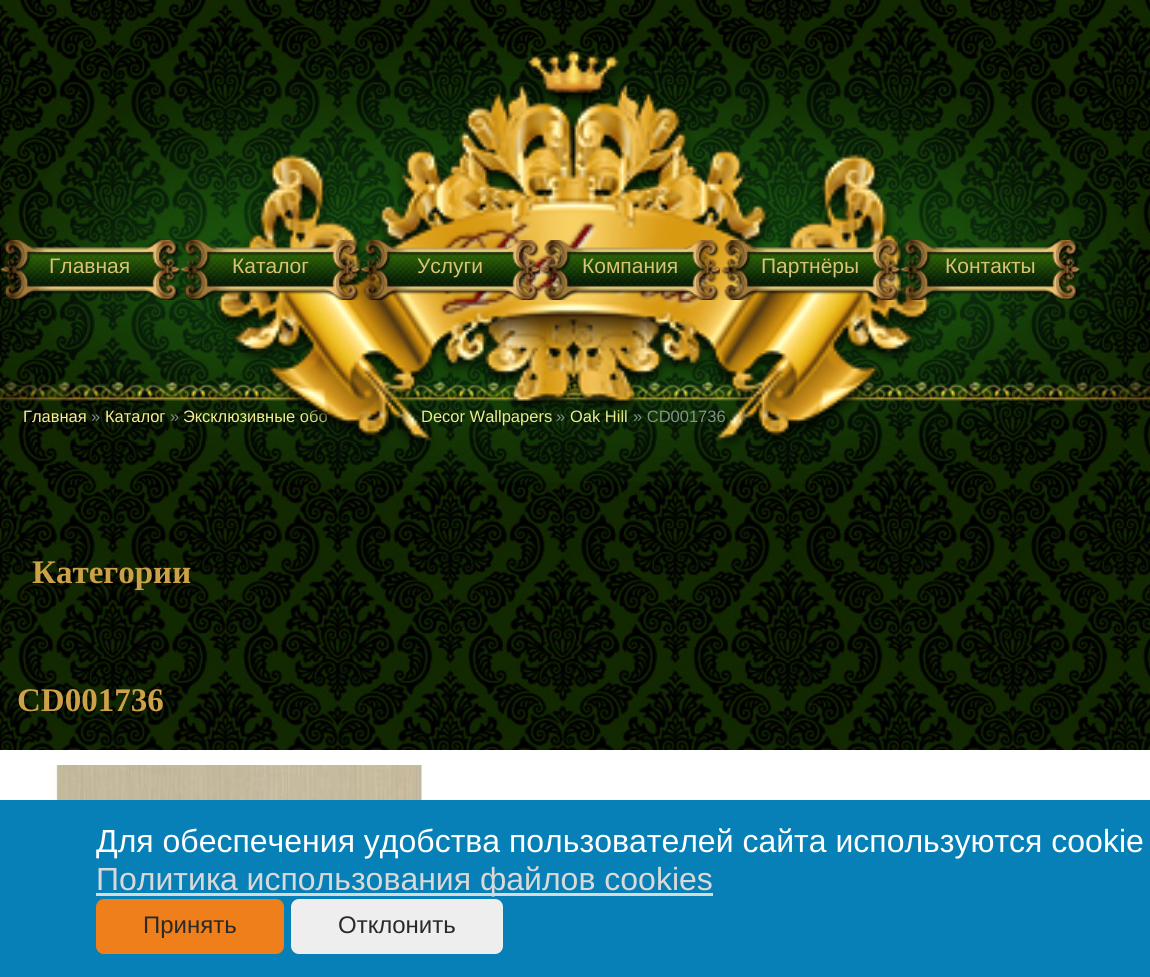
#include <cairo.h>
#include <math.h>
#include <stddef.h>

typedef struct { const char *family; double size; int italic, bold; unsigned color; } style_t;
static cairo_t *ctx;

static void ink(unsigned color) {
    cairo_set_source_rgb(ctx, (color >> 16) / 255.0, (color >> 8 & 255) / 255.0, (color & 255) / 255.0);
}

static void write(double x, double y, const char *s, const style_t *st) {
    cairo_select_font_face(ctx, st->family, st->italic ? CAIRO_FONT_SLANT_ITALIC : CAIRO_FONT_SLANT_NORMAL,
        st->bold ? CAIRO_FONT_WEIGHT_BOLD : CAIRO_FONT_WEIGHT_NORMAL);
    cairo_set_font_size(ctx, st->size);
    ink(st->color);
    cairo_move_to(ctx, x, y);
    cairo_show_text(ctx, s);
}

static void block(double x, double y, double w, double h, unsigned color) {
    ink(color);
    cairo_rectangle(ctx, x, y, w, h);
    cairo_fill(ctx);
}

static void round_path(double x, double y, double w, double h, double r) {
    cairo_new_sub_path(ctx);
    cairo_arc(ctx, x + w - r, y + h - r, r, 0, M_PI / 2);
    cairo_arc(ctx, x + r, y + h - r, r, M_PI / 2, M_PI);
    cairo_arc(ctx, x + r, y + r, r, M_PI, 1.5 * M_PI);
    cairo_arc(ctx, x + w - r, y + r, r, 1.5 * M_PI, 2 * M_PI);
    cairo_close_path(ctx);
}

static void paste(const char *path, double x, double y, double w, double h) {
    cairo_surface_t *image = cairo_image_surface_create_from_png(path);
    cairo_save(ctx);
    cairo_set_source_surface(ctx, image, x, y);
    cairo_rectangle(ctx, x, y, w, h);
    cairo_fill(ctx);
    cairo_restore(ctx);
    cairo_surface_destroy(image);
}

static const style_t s1 = {"Liberation Sans", 16.5, 0, 0, 0xffeb95};
static const style_t s2 = {"Liberation Sans", 16.5, 0, 0, 0x888888};
static const style_t s3 = {"Liberation Sans", 21, 0, 0, 0xd8c273};
static const style_t s4 = {"Liberation Serif", 33, 0, 1, 0xcca149};
static const style_t s5 = {"Liberation Sans", 32, 0, 0, 0xffffff};
static const style_t s6 = {"Liberation Sans", 32, 0, 0, 0xd9d9d9};
static const style_t s7 = {"Liberation Sans", 24, 0, 0, 0x2b2a29};

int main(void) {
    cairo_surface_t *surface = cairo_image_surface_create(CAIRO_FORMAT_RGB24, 1150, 977);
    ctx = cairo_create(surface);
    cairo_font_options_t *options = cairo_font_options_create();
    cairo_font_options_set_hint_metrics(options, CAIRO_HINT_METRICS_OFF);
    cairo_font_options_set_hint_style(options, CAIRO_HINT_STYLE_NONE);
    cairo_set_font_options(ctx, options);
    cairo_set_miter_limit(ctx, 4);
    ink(0xffffff);
    cairo_paint(ctx);
    paste("pic1.png", 0, 0, 1150, 750);
    paste("pic2.png", 0, 358, 1150, 43);
    write(23, 422, "Главная", &s1);
    write(91, 422, "»", &s2);
    write(105, 422, "Каталог", &s1);
    write(170, 422, "»", &s2);
    write(183, 422, "Эксклюзивные обо", &s1);
    write(421, 422, "Decor Wallpapers", &s1);
    write(556, 422, "»", &s2);
    write(570, 422, "Oak Hill", &s1);
    write(633, 422, "» CD001736", &s2);
    paste("pic3.png", 1, 47, 1136, 435);
    paste("pic4.png", 0, 240, 180, 60);
    write(49, 273, "Главная", &s3);
    paste("pic5.png", 180, 240, 180, 60);
    write(232, 273, "Каталог", &s3);
    paste("pic6.png", 360, 240, 180, 60);
    write(417, 273, "Услуги", &s3);
    paste("pic7.png", 540, 240, 180, 60);
    write(582, 273, "Компания", &s3);
    paste("pic8.png", 720, 240, 180, 60);
    write(761, 273, "Партнёры", &s3);
    paste("pic9.png", 900, 240, 180, 60);
    write(945, 273, "Контакты", &s3);
    write(32, 583, "Категории", &s4);
    write(17, 711, "CD001736", &s4);
    paste("pic10.png", 46, 765, 378, 35);
    block(0, 800, 1150, 177, 0x0780b8);
    write(96, 852, "Для обеспечения удобства пользователей сайта используются cookie", &s5);
    block(96, 893, 617, 3, 0xd9d9d9);
    write(96, 890, "Политика использования файлов cookies", &s6);
    ink(0xef7f1a);
    round_path(96, 899, 188, 55, 8);
    cairo_fill(ctx);
    write(143, 933, "Принять", &s7);
    ink(0xeeeeee);
    round_path(291, 899, 212, 55, 8);
    cairo_fill(ctx);
    write(338, 933, "Отклонить", &s7);
    cairo_surface_write_to_png(surface, "screenshot.png");
    cairo_font_options_destroy(options);
    cairo_destroy(ctx);
    cairo_surface_destroy(surface);
    return 0;
}
